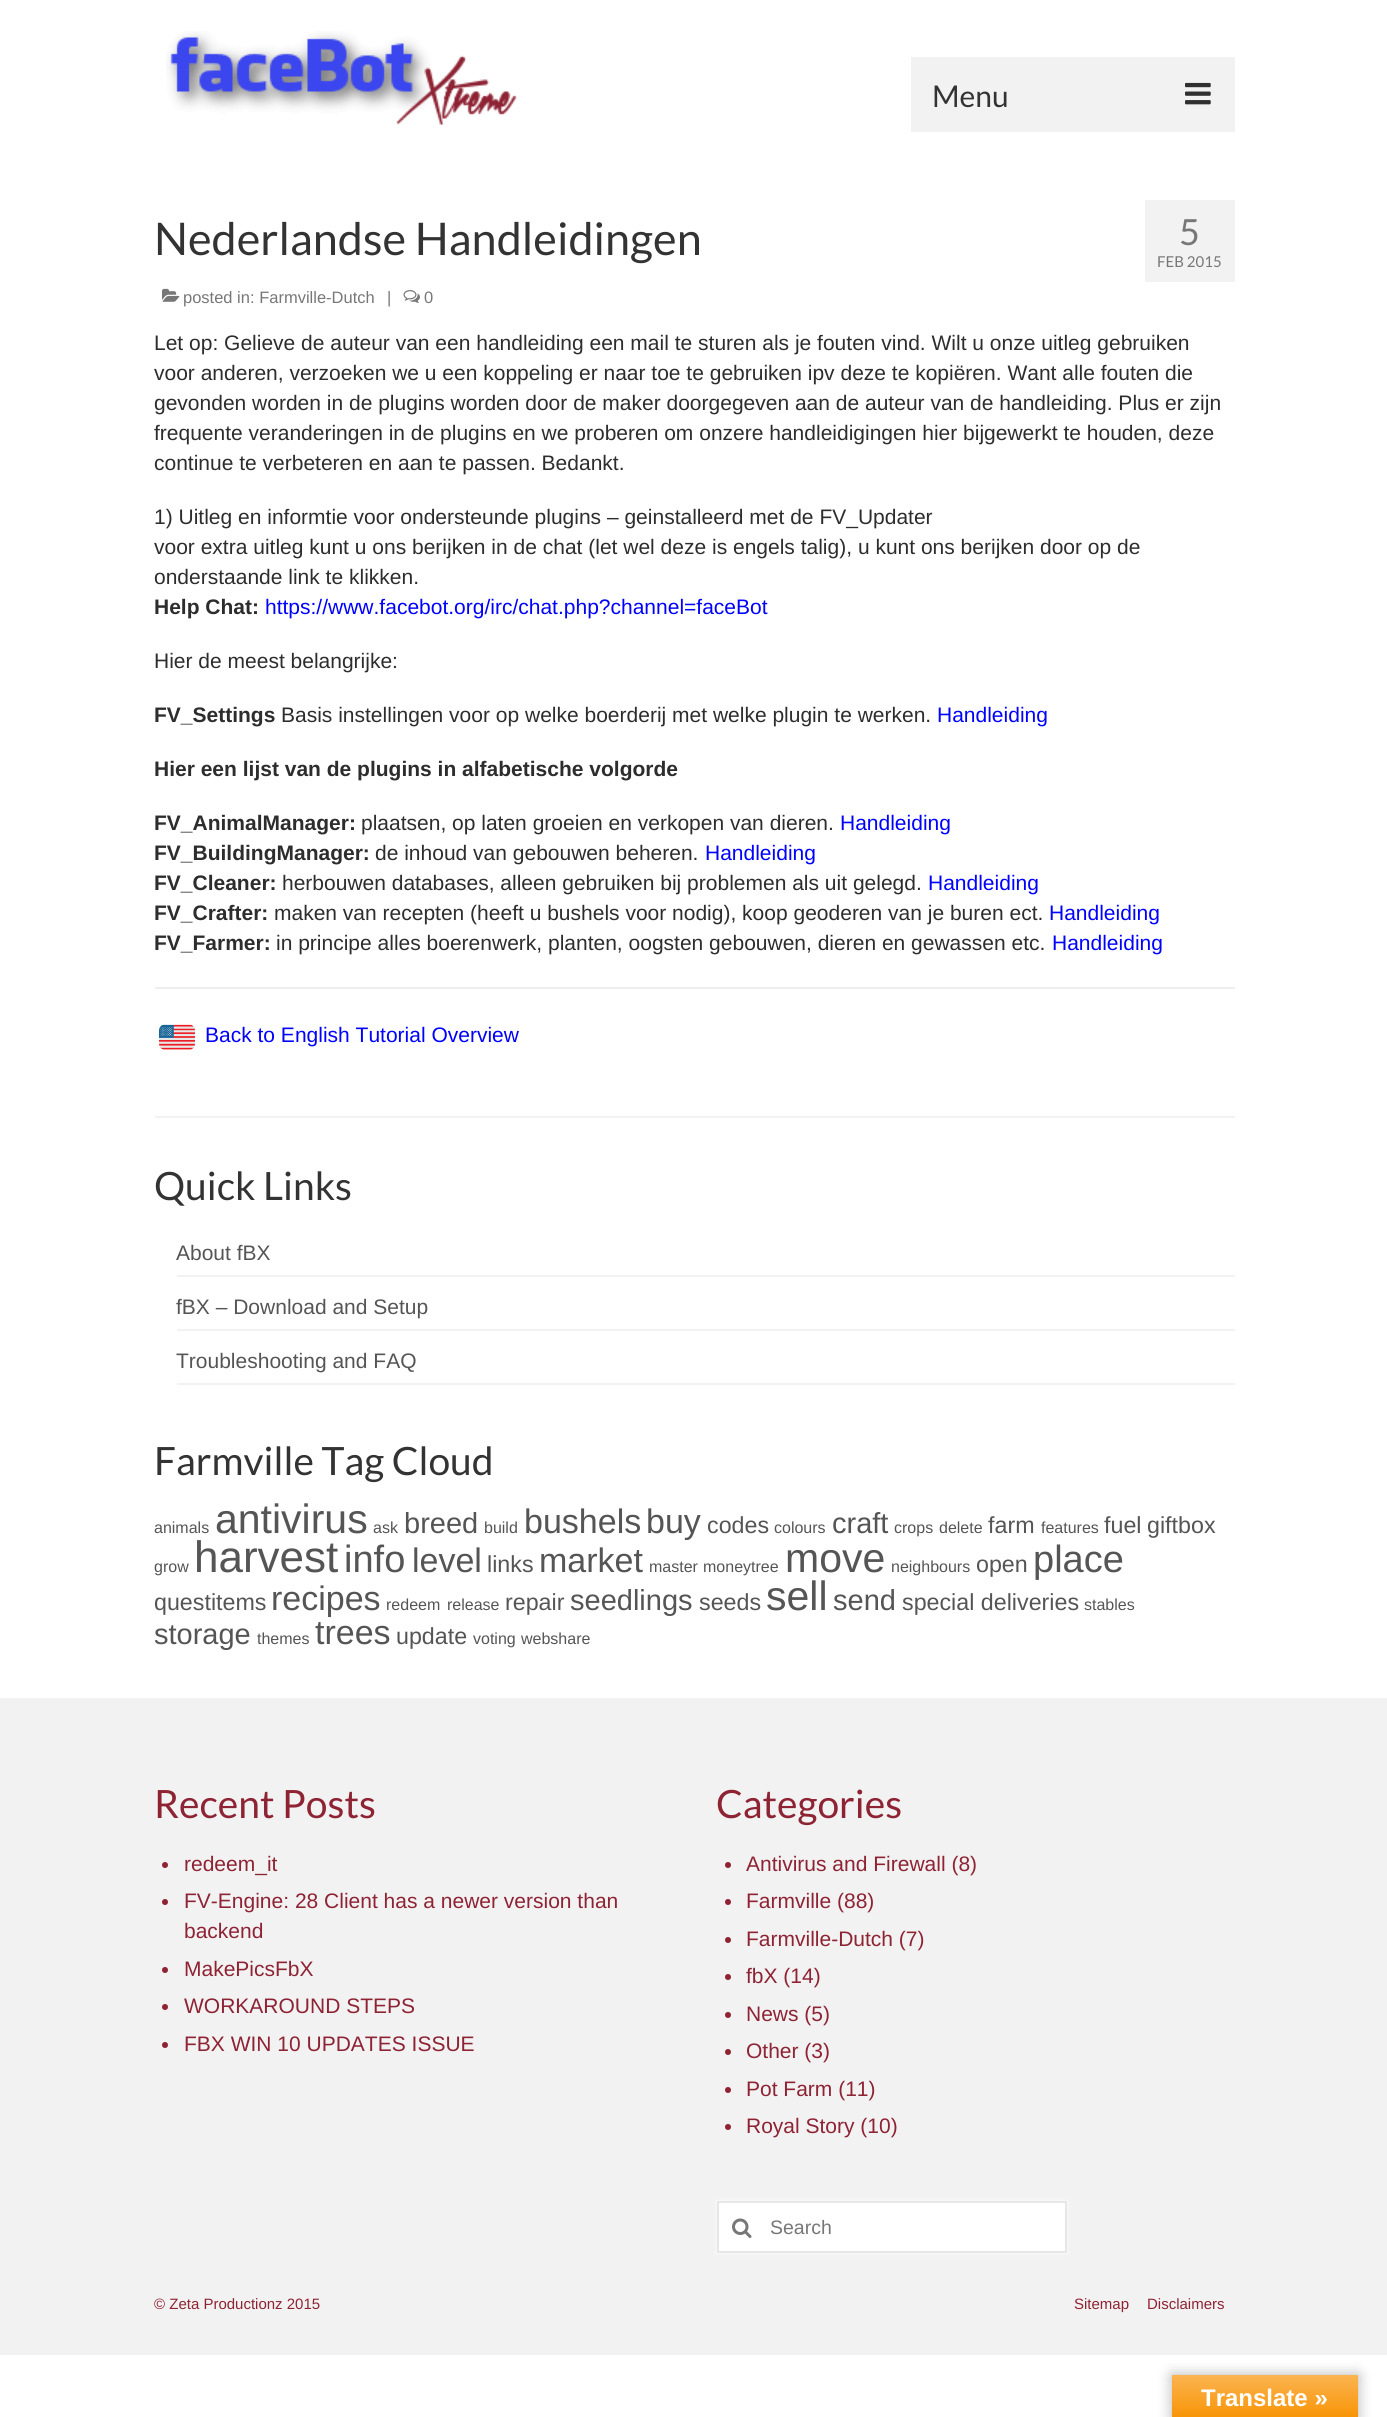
#include <cairo.h>
#include <math.h>
#include <stddef.h>

typedef struct { const char *family; double size; int italic, bold; unsigned color; } style_t;
static cairo_t *ctx;

static void ink(unsigned color) {
    cairo_set_source_rgb(ctx, (color >> 16) / 255.0, (color >> 8 & 255) / 255.0, (color & 255) / 255.0);
}

static void write(double x, double y, const char *s, const style_t *st) {
    cairo_select_font_face(ctx, st->family, st->italic ? CAIRO_FONT_SLANT_ITALIC : CAIRO_FONT_SLANT_NORMAL,
        st->bold ? CAIRO_FONT_WEIGHT_BOLD : CAIRO_FONT_WEIGHT_NORMAL);
    cairo_set_font_size(ctx, st->size);
    ink(st->color);
    cairo_move_to(ctx, x, y);
    cairo_show_text(ctx, s);
}

static void block(double x, double y, double w, double h, unsigned color) {
    ink(color);
    cairo_rectangle(ctx, x, y, w, h);
    cairo_fill(ctx);
}

static void round_path(double x, double y, double w, double h, double r) {
    cairo_new_sub_path(ctx);
    cairo_arc(ctx, x + w - r, y + h - r, r, 0, M_PI / 2);
    cairo_arc(ctx, x + r, y + h - r, r, M_PI / 2, M_PI);
    cairo_arc(ctx, x + r, y + r, r, M_PI, 1.5 * M_PI);
    cairo_arc(ctx, x + w - r, y + r, r, 1.5 * M_PI, 2 * M_PI);
    cairo_close_path(ctx);
}

static void blur_box(double x, double y, double w, double h, double r, double blur, double alpha) {
    cairo_push_group_with_content(ctx, CAIRO_CONTENT_ALPHA);
    cairo_set_operator(ctx, CAIRO_OPERATOR_SOURCE);
    for (int i = 15; i >= -15 && fmin(w, h) + blur * i / 3 > 0; i -= 2) {
        double e = blur * i / 6;
        cairo_set_source_rgba(ctx, 0, 0, 0, alpha * erfc((i - 1) / 8.5) / 2);
        round_path(x - e, y - e, w + 2 * e, h + 2 * e, fmax(0, fmin(r + e + blur * .6, fmin(w, h) / 2 + e)));
        cairo_fill(ctx);
    }
    cairo_pattern_t *soft = cairo_pop_group(ctx);
    cairo_mask(ctx, soft);
    cairo_pattern_destroy(soft);
}

static void paste(const char *path, double x, double y, double w, double h) {
    cairo_surface_t *image = cairo_image_surface_create_from_png(path);
    cairo_save(ctx);
    cairo_set_source_surface(ctx, image, x, y);
    cairo_rectangle(ctx, x, y, w, h);
    cairo_fill(ctx);
    cairo_restore(ctx);
    cairo_surface_destroy(image);
}

static const style_t s1 = {"Lato", 30, 0, 0, 0x333333};
static const style_t s2 = {"Lato", 45, 0, 0, 0x333333};
static const style_t s3 = {"Liberation Sans", 16.5, 0, 0, 0x777777};
static const style_t s4 = {"Lato", 36, 0, 0, 0x777777};
static const style_t s5 = {"Lato", 15, 0, 0, 0x777777};
static const style_t s6 = {"Liberation Sans", 21, 0, 0, 0x2d2d2d};
static const style_t s7 = {"Liberation Sans", 21, 0, 1, 0x2d2d2d};
static const style_t s8 = {"Liberation Sans", 21, 0, 0, 0x0000ff};
static const style_t s9 = {"Lato", 39, 0, 0, 0x333333};
static const style_t s10 = {"Liberation Sans", 21, 0, 0, 0x555555};
static const style_t s11 = {"Liberation Sans", 16, 0, 0, 0x555555};
static const style_t s12 = {"Liberation Sans", 41, 0, 0, 0x555555};
static const style_t s13 = {"Liberation Sans", 29, 0, 0, 0x555555};
static const style_t s14 = {"Liberation Sans", 34, 0, 0, 0x555555};
static const style_t s15 = {"Liberation Sans", 23.25, 0, 0, 0x555555};
static const style_t s16 = {"Liberation Sans", 44, 0, 0, 0x555555};
static const style_t s17 = {"Liberation Sans", 38, 0, 0, 0x555555};
static const style_t s18 = {"Lato", 39, 0, 0, 0x8e2334};
static const style_t s19 = {"Liberation Sans", 21, 0, 0, 0x8e2334};
static const style_t s20 = {"Liberation Sans", 19.5, 0, 0, 0x777777};
static const style_t s21 = {"Liberation Sans", 15, 0, 0, 0x8e2334};
static const style_t s22 = {"Liberation Sans", 24, 0, 1, 0xffffff};

int main(void) {
    cairo_surface_t *surface = cairo_image_surface_create(CAIRO_FORMAT_RGB24, 1387, 2417);
    ctx = cairo_create(surface);
    cairo_font_options_t *options = cairo_font_options_create();
    cairo_font_options_set_hint_metrics(options, CAIRO_HINT_METRICS_OFF);
    cairo_font_options_set_hint_style(options, CAIRO_HINT_STYLE_NONE);
    cairo_set_font_options(ctx, options);
    cairo_set_miter_limit(ctx, 4);
    cairo_pattern_t *gradient;
    ink(0xffffff);
    cairo_paint(ctx);
    paste("pic1.png", 166, 31, 351, 94);
    block(911, 57, 324, 75, 0xf2f2f2);
    write(932, 107, "Menu", &s1);
    paste("pic2.png", 1185, 82, 26, 23);
    write(154, 255, "Nederlandse Handleidingen", &s2);
    paste("pic3.png", 162, 288, 18, 14);
    write(183, 303, "posted in: Farmville-Dutch", &s3);
    write(387, 303, "|", &s3);
    paste("pic4.png", 403, 290, 17, 13);
    write(424, 303, "0", &s3);
    block(1145, 200, 90, 82, 0xf2f2f2);
    write(1179, 245, "5", &s4);
    write(1157, 267, "FEB 2015", &s5);
    write(154, 350, "Let op: Gelieve de auteur van een handleiding een mail te sturen als je fouten vind. Wilt u onze uitleg gebruiken", &s6);
    write(154, 380, "voor anderen, verzoeken we u een koppeling er naar toe te gebruiken ipv deze te kopiëren. Want alle fouten die", &s6);
    write(154, 410, "gevonden worden in de plugins worden door de maker doorgegeven aan de auteur van de handleiding. Plus er zijn", &s6);
    write(154, 440, "frequente veranderingen in de plugins en we proberen om onzere handleidigingen hier bijgewerkt te houden, deze", &s6);
    write(154, 470, "continue te verbeteren en aan te passen. Bedankt.", &s6);
    write(154, 524, "1) Uitleg en informtie voor ondersteunde plugins – geinstalleerd met de FV_Updater", &s6);
    write(154, 554, "voor extra uitleg kunt u ons berijken in de chat (let wel deze is engels talig), u kunt ons berijken door op de", &s6);
    write(154, 584, "onderstaande link te klikken.", &s6);
    write(154, 614, "Help Chat:", &s7);
    write(265, 614, "https://www.facebot.org/irc/chat.php?channel=faceBot", &s8);
    write(154, 668, "Hier de meest belangrijke:", &s6);
    write(154, 722, "FV_Settings", &s7);
    write(281, 722, "Basis instellingen voor op welke boerderij met welke plugin te werken.", &s6);
    write(937, 722, "Handleiding", &s8);
    write(154, 776, "Hier een lijst van de plugins in alfabetische volgorde", &s7);
    write(154, 830, "FV_AnimalManager:", &s7);
    write(361, 830, "plaatsen, op laten groeien en verkopen van dieren.", &s6);
    write(840, 830, "Handleiding", &s8);
    write(154, 860, "FV_BuildingManager:", &s7);
    write(375, 860, "de inhoud van gebouwen beheren.", &s6);
    write(705, 860, "Handleiding", &s8);
    write(154, 890, "FV_Cleaner:", &s7);
    write(282, 890, "herbouwen databases, alleen gebruiken bij problemen als uit gelegd.", &s6);
    write(928, 890, "Handleiding", &s8);
    write(154, 920, "FV_Crafter:", &s7);
    write(274, 920, "maken van recepten (heeft u bushels voor nodig), koop geoderen van je buren ect.", &s6);
    write(1049, 920, "Handleiding", &s8);
    write(154, 950, "FV_Farmer:", &s7);
    write(276, 950, "in principe alles boerenwerk, planten, oogsten gebouwen, dieren en gewassen etc.", &s6);
    write(1052, 950, "Handleiding", &s8);
    block(155, 987, 1080, 2, 0xeeeeee);
    paste("pic5.png", 159, 1024, 36, 26);
    write(205, 1042, "Back to English Tutorial Overview", &s8);
    block(155, 1116, 1080, 2, 0xf2f2f2);
    write(154, 1200, "Quick Links", &s9);
    block(177, 1275, 1058, 2, 0xf2f2f2);
    write(176, 1260, "About fBX", &s10);
    block(177, 1329, 1058, 2, 0xf2f2f2);
    write(176, 1314, "fBX – Download and Setup", &s10);
    block(177, 1383, 1058, 2, 0xf2f2f2);
    write(176, 1368, "Troubleshooting and FAQ", &s10);
    write(154, 1475, "Farmville Tag Cloud", &s9);
    write(154, 1533, "animals", &s11);
    write(215, 1533, "antivirus", &s12);
    write(373, 1533, "ask", &s11);
    write(404, 1533, "breed", &s13);
    write(484, 1533, "build", &s11);
    write(524, 1533, "bushels", &s14);
    write(646, 1533, "buy", &s14);
    write(707, 1533, "codes", &s15);
    write(774, 1533, "colours", &s11);
    write(832, 1533, "craft", &s13);
    write(894, 1533, "crops", &s11);
    write(939, 1533, "delete", &s11);
    write(988, 1533, "farm", &s15);
    write(1041, 1533, "features", &s11);
    write(1104, 1533, "fuel", &s15);
    write(1147, 1533, "giftbox", &s15);
    write(154, 1572, "grow", &s11);
    write(194, 1572, "harvest", &s16);
    write(344, 1572, "info", &s17);
    write(412, 1572, "level", &s14);
    write(487, 1572, "links", &s15);
    write(539, 1572, "market", &s14);
    write(649, 1572, "master", &s11);
    write(703, 1572, "moneytree", &s11);
    write(785, 1572, "move", &s12);
    write(891, 1572, "neighbours", &s11);
    write(976, 1572, "open", &s15);
    write(1033, 1572, "place", &s17);
    write(154, 1610, "questitems", &s15);
    write(271, 1610, "recipes", &s14);
    write(386, 1610, "redeem", &s11);
    write(447, 1610, "release", &s11);
    write(505, 1610, "repair", &s15);
    write(570, 1610, "seedlings", &s13);
    write(699, 1610, "seeds", &s15);
    write(766, 1610, "sell", &s12);
    write(833, 1610, "send", &s13);
    write(902, 1610, "special deliveries", &s15);
    write(1084, 1610, "stables", &s11);
    write(154, 1644, "storage", &s13);
    write(257, 1644, "themes", &s11);
    write(315, 1644, "trees", &s14);
    write(396, 1644, "update", &s15);
    write(473, 1644, "voting", &s11);
    write(521, 1644, "webshare", &s11);
    block(0, 1698, 1387, 657, 0xf2f2f2);
    write(154, 1818, "Recent Posts", &s18);
    cairo_new_path(ctx);
    cairo_arc(ctx, 165, 1865, 3, 0, 2 * M_PI);
    cairo_fill(ctx);
    write(184, 1871, "redeem_it", &s19);
    cairo_new_path(ctx);
    cairo_arc(ctx, 165, 1902, 3, 0, 2 * M_PI);
    cairo_fill(ctx);
    write(184, 1908, "FV-Engine: 28 Client has a newer version than", &s19);
    write(184, 1938, "backend", &s19);
    cairo_new_path(ctx);
    cairo_arc(ctx, 165, 1970, 3, 0, 2 * M_PI);
    cairo_fill(ctx);
    write(184, 1976, "MakePicsFbX", &s19);
    cairo_new_path(ctx);
    cairo_arc(ctx, 165, 2007, 3, 0, 2 * M_PI);
    cairo_fill(ctx);
    write(184, 2013, "WORKAROUND STEPS", &s19);
    cairo_new_path(ctx);
    cairo_arc(ctx, 165, 2045, 3, 0, 2 * M_PI);
    cairo_fill(ctx);
    write(184, 2051, "FBX WIN 10 UPDATES ISSUE", &s19);
    write(716, 1818, "Categories", &s18);
    cairo_new_path(ctx);
    cairo_arc(ctx, 728, 1865, 3, 0, 2 * M_PI);
    cairo_fill(ctx);
    write(746, 1871, "Antivirus and Firewall (8)", &s19);
    cairo_new_path(ctx);
    cairo_arc(ctx, 728, 1902, 3, 0, 2 * M_PI);
    cairo_fill(ctx);
    write(746, 1908, "Farmville (88)", &s19);
    cairo_new_path(ctx);
    cairo_arc(ctx, 728, 1940, 3, 0, 2 * M_PI);
    cairo_fill(ctx);
    write(746, 1946, "Farmville-Dutch (7)", &s19);
    cairo_new_path(ctx);
    cairo_arc(ctx, 728, 1977, 3, 0, 2 * M_PI);
    cairo_fill(ctx);
    write(746, 1983, "fbX (14)", &s19);
    cairo_new_path(ctx);
    cairo_arc(ctx, 728, 2015, 3, 0, 2 * M_PI);
    cairo_fill(ctx);
    write(746, 2021, "News (5)", &s19);
    cairo_new_path(ctx);
    cairo_arc(ctx, 728, 2052, 3, 0, 2 * M_PI);
    cairo_fill(ctx);
    write(746, 2058, "Other (3)", &s19);
    cairo_new_path(ctx);
    cairo_arc(ctx, 728, 2090, 3, 0, 2 * M_PI);
    cairo_fill(ctx);
    write(746, 2096, "Pot Farm (11)", &s19);
    cairo_new_path(ctx);
    cairo_arc(ctx, 728, 2127, 3, 0, 2 * M_PI);
    cairo_fill(ctx);
    write(746, 2133, "Royal Story (10)", &s19);
    ink(0xffffff);
    blur_box(717, 2201, 350, 52, 0, 2, 1);
    cairo_rectangle(ctx, 718, 2202, 348, 50);
    ink(0xe7e7e7);
    cairo_stroke(ctx);
    paste("pic6.png", 732, 2218, 20, 20);
    write(770, 2234, "Search", &s20);
    write(154, 2309, "© Zeta Productionz 2015", &s21);
    write(1074, 2309, "Sitemap", &s21);
    write(1147, 2309, "Disclaimers", &s21);
    ink(0x000000);
    blur_box(1172, 2375, 186, 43, 0, 7, 0.3);
    gradient = cairo_pattern_create_linear(1265, 2375, 1265, 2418);
    cairo_pattern_add_color_stop_rgba(gradient, 0, 0.984, 0.706, 0.314, 1);
    cairo_pattern_add_color_stop_rgba(gradient, 1, 0.973, 0.58, 0.024, 1);
    cairo_set_source(ctx, gradient);
    cairo_pattern_destroy(gradient);
    cairo_rectangle(ctx, 1172, 2375, 186, 42);
    cairo_fill(ctx);
    write(1201, 2406, "Translate »", &s22);
    cairo_surface_write_to_png(surface, "screenshot.png");
    cairo_font_options_destroy(options);
    cairo_destroy(ctx);
    cairo_surface_destroy(surface);
    return 0;
}
